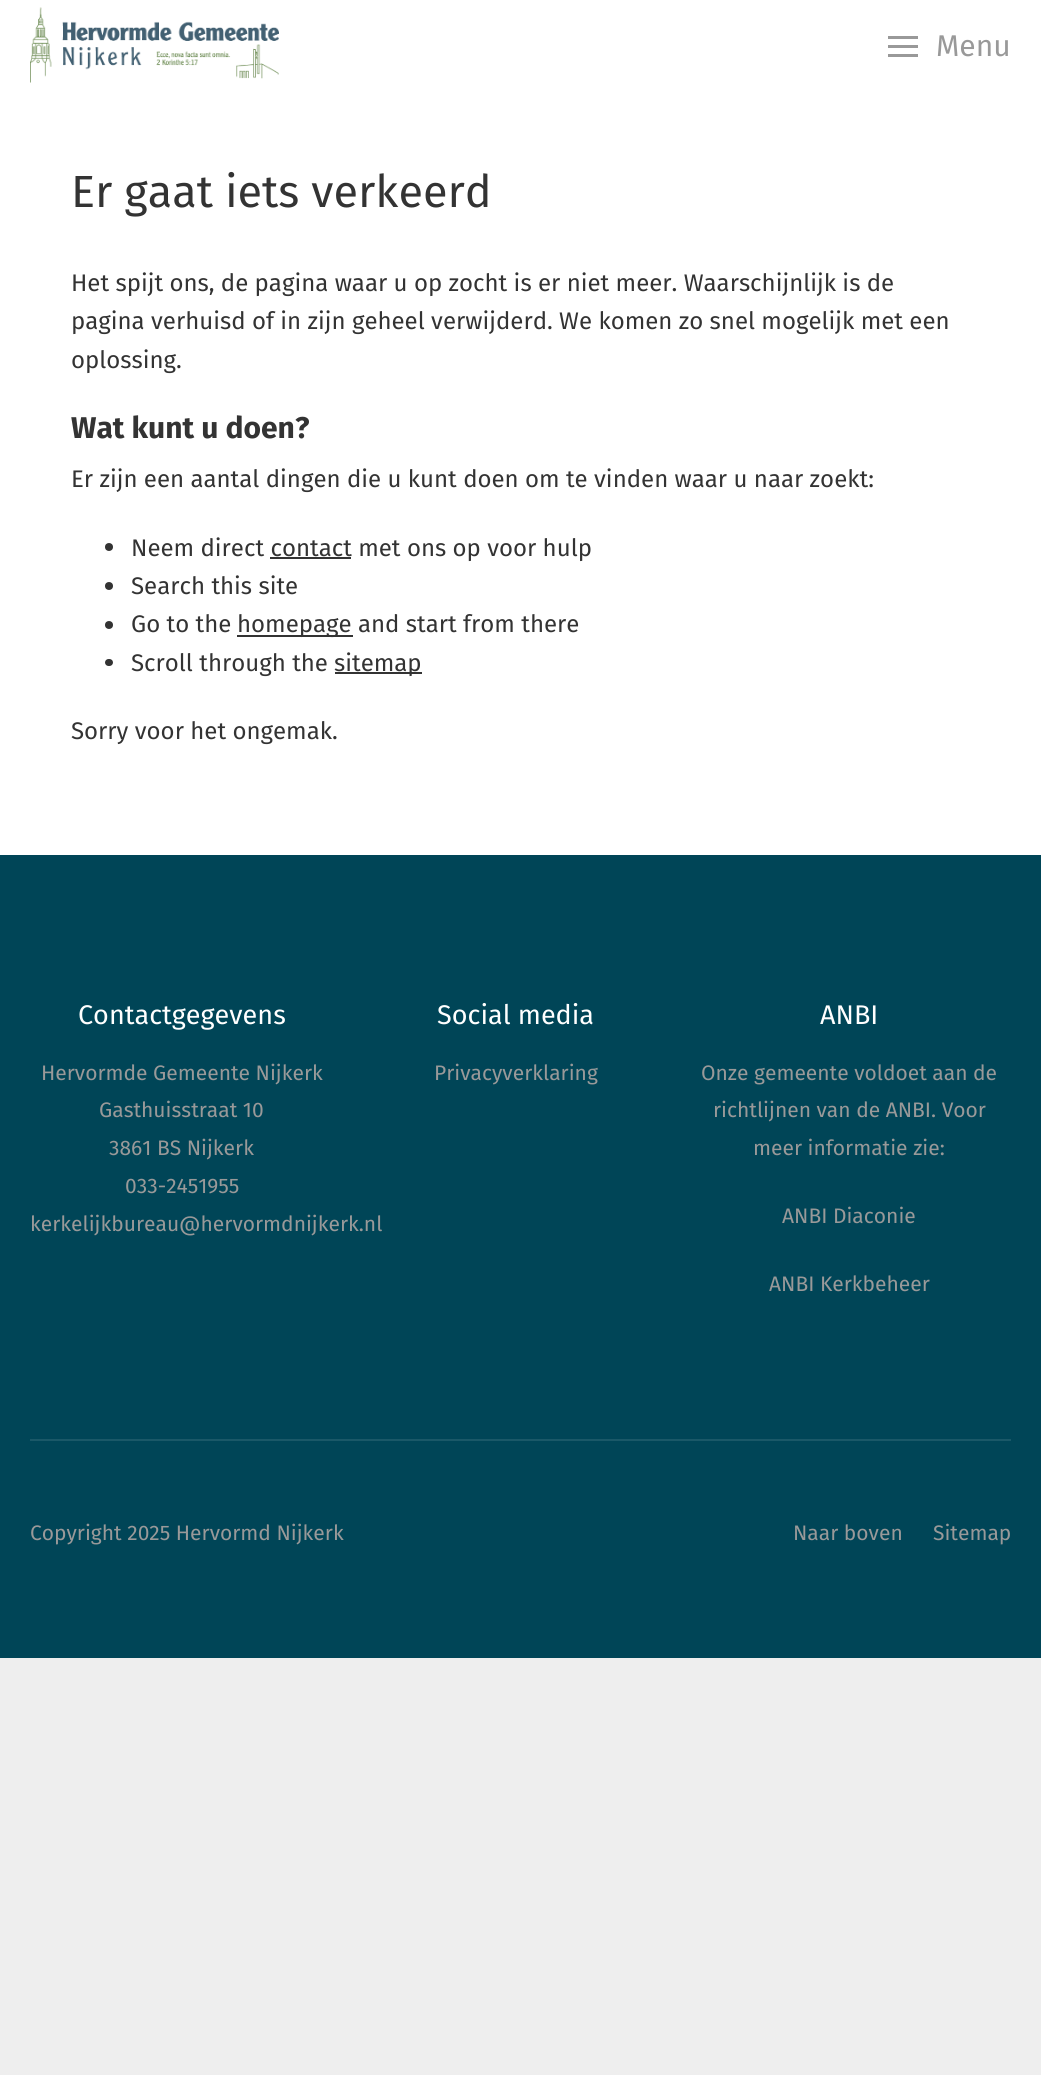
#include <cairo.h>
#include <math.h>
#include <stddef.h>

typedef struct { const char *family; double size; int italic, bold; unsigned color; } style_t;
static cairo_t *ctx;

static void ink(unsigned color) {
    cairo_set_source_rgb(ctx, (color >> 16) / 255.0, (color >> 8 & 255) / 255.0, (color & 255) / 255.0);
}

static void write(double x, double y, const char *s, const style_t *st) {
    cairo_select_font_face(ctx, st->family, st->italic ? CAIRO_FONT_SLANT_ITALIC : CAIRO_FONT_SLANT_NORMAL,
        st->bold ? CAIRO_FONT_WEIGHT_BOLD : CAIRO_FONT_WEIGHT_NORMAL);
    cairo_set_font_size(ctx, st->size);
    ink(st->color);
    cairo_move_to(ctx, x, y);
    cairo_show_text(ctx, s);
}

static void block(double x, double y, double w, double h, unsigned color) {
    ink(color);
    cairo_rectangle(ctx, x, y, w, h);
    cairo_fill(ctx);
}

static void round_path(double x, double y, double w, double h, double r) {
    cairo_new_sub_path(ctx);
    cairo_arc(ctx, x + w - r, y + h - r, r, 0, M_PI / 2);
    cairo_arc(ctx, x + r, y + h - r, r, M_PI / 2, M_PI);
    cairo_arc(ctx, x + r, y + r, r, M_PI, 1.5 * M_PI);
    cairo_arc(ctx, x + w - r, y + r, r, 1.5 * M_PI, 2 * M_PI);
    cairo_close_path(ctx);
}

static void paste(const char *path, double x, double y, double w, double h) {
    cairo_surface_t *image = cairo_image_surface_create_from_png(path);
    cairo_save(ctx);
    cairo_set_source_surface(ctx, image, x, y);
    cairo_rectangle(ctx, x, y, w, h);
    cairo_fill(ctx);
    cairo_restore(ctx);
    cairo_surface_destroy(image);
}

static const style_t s1 = {"Fira Sans", 30, 0, 0, 0x999999};
static const style_t s2 = {"Fira Sans", 45, 0, 0, 0x333333};
static const style_t s3 = {"Fira Sans", 24, 0, 0, 0x333333};
static const style_t s4 = {"Fira Sans", 30, 0, 1, 0x333333};
static const style_t s5 = {"Fira Sans", 27, 0, 0, 0xffffff};
static const style_t s6 = {"Fira Sans", 21, 0, 0, 0x999999};

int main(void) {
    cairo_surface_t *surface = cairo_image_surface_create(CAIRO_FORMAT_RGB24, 1041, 2075);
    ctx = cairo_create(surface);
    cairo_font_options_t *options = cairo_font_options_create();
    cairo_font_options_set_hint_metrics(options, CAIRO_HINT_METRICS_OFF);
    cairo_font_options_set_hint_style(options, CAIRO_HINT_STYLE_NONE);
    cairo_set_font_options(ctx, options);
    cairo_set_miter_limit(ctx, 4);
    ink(0xeeeeee);
    cairo_paint(ctx);
    block(0, 0, 1041, 855, 0xffffff);
    paste("pic1.png", 30, 7, 249, 76);
    block(888, 45, 30, 3, 0x999999);
    block(888, 36, 30, 3, 0x999999);
    block(888, 54, 30, 3, 0x999999);
    write(936, 56, "Menu", &s1);
    write(71, 207, "Er gaat iets verkeerd", &s2);
    write(71, 291, "Het spijt ons, de pagina waar u op zocht is er niet meer. Waarschijnlijk is de", &s3);
    write(71, 329, "pagina verhuisd of in zijn geheel verwijderd. We komen zo snel mogelijk met een", &s3);
    write(71, 368, "oplossing.", &s3);
    write(71, 438, "Wat kunt u doen?", &s4);
    write(71, 487, "Er zijn een aantal dingen die u kunt doen om te vinden waar u naar zoekt:", &s3);
    cairo_new_path(ctx);
    cairo_arc(ctx, 109, 547, 4, 0, 2 * M_PI);
    cairo_fill(ctx);
    write(131, 556, "Neem direct contact met ons op voor hulp", &s3);
    block(270, 557, 81, 2, 0x333333);
    cairo_new_path(ctx);
    cairo_arc(ctx, 109, 586, 4, 0, 2 * M_PI);
    cairo_fill(ctx);
    write(131, 594, "Search this site", &s3);
    cairo_new_path(ctx);
    cairo_arc(ctx, 109, 625, 4, 0, 2 * M_PI);
    cairo_fill(ctx);
    write(131, 632, "Go to the", &s3);
    block(237, 635, 116, 2, 0x333333);
    write(237, 632, "homepage and start from there", &s3);
    round_path(105, 659, 8, 7, 3.5);
    cairo_fill(ctx);
    write(131, 671, "Scroll through the", &s3);
    block(335, 672, 87, 2, 0x333333);
    write(334, 671, "sitemap", &s3);
    write(71, 739, "Sorry voor het ongemak.", &s3);
    block(0, 855, 1041, 803, 0x004557);
    write(78, 1024, "Contactgegevens", &s5);
    write(41, 1080, "Hervormde Gemeente Nijkerk", &s6);
    write(99, 1117, "Gasthuisstraat 10", &s6);
    write(109, 1155, "3861 BS Nijkerk", &s6);
    write(125, 1193, "033-2451955", &s6);
    write(30, 1231, "kerkelijkbureau@hervormdnijkerk.nl", &s6);
    write(437, 1024, "Social media", &s5);
    write(434, 1080, "Privacyverklaring", &s6);
    write(820, 1024, "ANBI", &s5);
    write(701, 1080, "Onze gemeente voldoet aan de", &s6);
    write(713, 1117, "richtlijnen van de ANBI. Voor", &s6);
    write(753, 1155, "meer informatie zie:", &s6);
    write(782, 1223, "ANBI Diaconie", &s6);
    write(769, 1291, "ANBI Kerkbeheer", &s6);
    block(30, 1439, 981, 2, 0x1a5868);
    write(30, 1540, "Copyright 2025 Hervormd Nijkerk", &s6);
    write(793, 1540, "Naar boven", &s6);
    write(933, 1540, "Sitemap", &s6);
    cairo_surface_write_to_png(surface, "screenshot.png");
    cairo_font_options_destroy(options);
    cairo_destroy(ctx);
    cairo_surface_destroy(surface);
    return 0;
}
